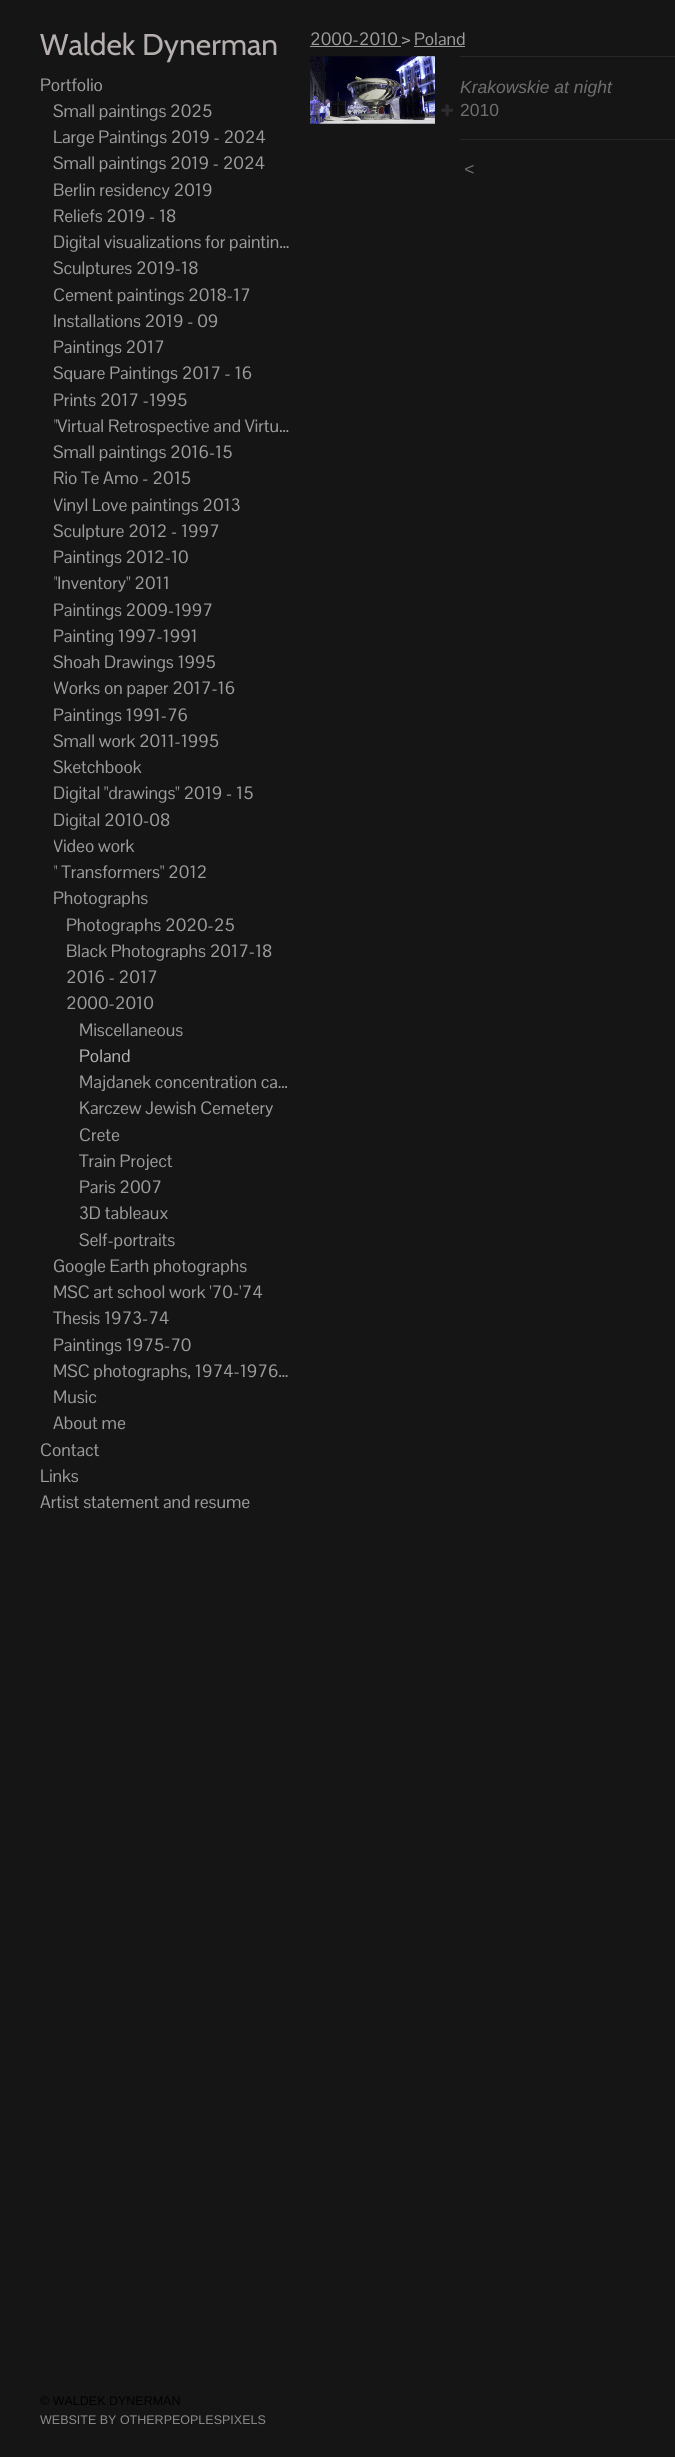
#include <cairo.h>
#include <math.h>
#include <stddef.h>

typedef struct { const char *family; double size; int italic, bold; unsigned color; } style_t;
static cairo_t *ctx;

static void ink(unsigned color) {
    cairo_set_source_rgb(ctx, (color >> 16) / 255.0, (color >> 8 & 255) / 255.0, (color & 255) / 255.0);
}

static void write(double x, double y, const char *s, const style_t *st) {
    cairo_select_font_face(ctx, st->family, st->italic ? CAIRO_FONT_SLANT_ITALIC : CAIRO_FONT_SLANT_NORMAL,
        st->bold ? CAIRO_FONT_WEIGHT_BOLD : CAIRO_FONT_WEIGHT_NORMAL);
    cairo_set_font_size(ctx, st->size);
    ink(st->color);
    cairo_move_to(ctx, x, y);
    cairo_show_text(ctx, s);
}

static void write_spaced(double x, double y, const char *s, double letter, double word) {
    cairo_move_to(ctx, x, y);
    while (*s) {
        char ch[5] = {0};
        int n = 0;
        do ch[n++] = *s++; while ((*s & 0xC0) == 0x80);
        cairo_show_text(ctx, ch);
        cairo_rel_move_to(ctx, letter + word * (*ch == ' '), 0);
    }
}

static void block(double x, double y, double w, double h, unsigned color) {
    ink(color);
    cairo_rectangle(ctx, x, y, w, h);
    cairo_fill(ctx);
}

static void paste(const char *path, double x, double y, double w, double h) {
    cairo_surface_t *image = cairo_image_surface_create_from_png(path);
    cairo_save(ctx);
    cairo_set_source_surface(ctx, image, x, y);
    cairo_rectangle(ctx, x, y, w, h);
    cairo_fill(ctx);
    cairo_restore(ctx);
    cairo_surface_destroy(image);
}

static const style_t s1 = {"Cabin", 30, 0, 0, 0xb6afaf};
static const style_t s2 = {"Pontano Sans", 17.5, 0, 0, 0x9c9c9c};
static const style_t s3 = {"Pontano Sans", 17.5, 0, 0, 0xb5b5b5};
static const style_t s4 = {"Liberation Sans", 12.5, 0, 0, 0x000000};
static const style_t s5 = {"Liberation Sans", 12.5, 0, 0, 0x8a8b89};
static const style_t s6 = {"Liberation Sans", 17.5, 1, 0, 0x6e6e6e};
static const style_t s7 = {"Liberation Sans", 17.5, 0, 0, 0x6e6e6e};

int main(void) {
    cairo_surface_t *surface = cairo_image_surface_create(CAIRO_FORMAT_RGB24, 675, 2457);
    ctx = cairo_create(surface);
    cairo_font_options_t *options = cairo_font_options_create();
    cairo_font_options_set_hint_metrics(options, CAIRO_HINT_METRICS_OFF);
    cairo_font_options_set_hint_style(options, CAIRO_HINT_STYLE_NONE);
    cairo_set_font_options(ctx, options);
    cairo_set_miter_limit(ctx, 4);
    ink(0x151515);
    cairo_paint(ctx);
    write(40, 55, "Waldek Dynerman", &s1);
    write(40, 91, "Portfolio", &s2);
    write(53, 117, "Small paintings 2025", &s2);
    write(53, 143, "Large Paintings 2019 - 2024", &s2);
    write(53, 169, "Small paintings 2019 - 2024", &s2);
    write(53, 196, "Berlin residency 2019", &s2);
    write(53, 222, "Reliefs 2019 - 18", &s2);
    write(53, 248, "Digital visualizations for paintin…", &s2);
    write(53, 274, "Sculptures 2019-18", &s2);
    write(53, 301, "Cement paintings 2018-17", &s2);
    write(53, 327, "Installations 2019 - 09", &s2);
    write(53, 353, "Paintings 2017", &s2);
    write(53, 379, "Square Paintings 2017 - 16", &s2);
    write(53, 406, "Prints 2017 -1995", &s2);
    cairo_save(ctx);
    cairo_rectangle(ctx, 54, 413, 236, 26);
    cairo_clip(ctx);
    write(53, 432, "\"Virtual Retrospective and Virtu…", &s2);
    cairo_restore(ctx);
    write(53, 458, "Small paintings 2016-15", &s2);
    write(53, 484, "Rio Te Amo - 2015", &s2);
    cairo_save(ctx);
    cairo_rectangle(ctx, 54, 491, 236, 27);
    cairo_clip(ctx);
    write(53, 511, "Vinyl Love paintings 2013", &s2);
    cairo_restore(ctx);
    write(53, 537, "Sculpture 2012 - 1997", &s2);
    write(53, 563, "Paintings 2012-10", &s2);
    cairo_save(ctx);
    cairo_rectangle(ctx, 54, 570, 236, 26);
    cairo_clip(ctx);
    write(53, 589, "\"Inventory\" 2011", &s2);
    cairo_restore(ctx);
    write(53, 616, "Paintings 2009-1997", &s2);
    write(53, 642, "Painting 1997-1991", &s2);
    write(53, 668, "Shoah Drawings 1995", &s2);
    cairo_save(ctx);
    cairo_rectangle(ctx, 54, 675, 236, 26);
    cairo_clip(ctx);
    write(53, 694, "Works on paper 2017-16", &s2);
    cairo_restore(ctx);
    write(53, 721, "Paintings 1991-76", &s2);
    write(53, 747, "Small work 2011-1995", &s2);
    write(53, 773, "Sketchbook", &s2);
    write(53, 799, "Digital \"drawings\" 2019 - 15", &s2);
    write(53, 826, "Digital 2010-08", &s2);
    cairo_save(ctx);
    cairo_rectangle(ctx, 54, 833, 236, 26);
    cairo_clip(ctx);
    write(53, 852, "Video work", &s2);
    cairo_restore(ctx);
    cairo_save(ctx);
    cairo_rectangle(ctx, 54, 859, 236, 26);
    cairo_clip(ctx);
    write(53, 878, "\" Transformers\" 2012", &s2);
    cairo_restore(ctx);
    write(53, 904, "Photographs", &s2);
    write(66, 931, "Photographs 2020-25", &s2);
    write(66, 957, "Black Photographs 2017-18", &s2);
    write(66, 983, "2016 - 2017", &s2);
    write(66, 1009, "2000-2010", &s2);
    write(79, 1036, "Miscellaneous", &s2);
    write(79, 1062, "Poland", &s3);
    write(79, 1088, "Majdanek concentration ca…", &s2);
    write(79, 1114, "Karczew Jewish Cemetery", &s2);
    write(79, 1141, "Crete", &s2);
    write(79, 1167, "Train Project", &s2);
    write(79, 1193, "Paris 2007", &s2);
    write(79, 1219, "3D tableaux", &s2);
    write(79, 1246, "Self-portraits", &s2);
    write(53, 1272, "Google Earth photographs", &s2);
    write(53, 1298, "MSC art school work '70-'74", &s2);
    write(53, 1324, "Thesis 1973-74", &s2);
    write(53, 1351, "Paintings 1975-70", &s2);
    write(53, 1377, "MSC photographs, 1974-1976…", &s2);
    write(53, 1403, "Music", &s2);
    write(53, 1429, "About me", &s2);
    write(40, 1456, "Contact", &s2);
    write(40, 1482, "Links", &s2);
    write(40, 1508, "Artist statement and resume", &s2);
    write(40, 2405, "© WALDEK DYNERMAN", &s4);
    write(40, 2424, "WEBSITE BY OTHERPEOPLESPIXELS", &s5);
    write(310, 45, "2000-2010 > Poland", &s2);
    block(310, 46, 91, 1, 0x9c9c9c);
    block(414, 46, 51, 1, 0x9c9c9c);
    paste("pic1.png", 310, 56, 125, 68);
    paste("pic2.png", 441, 104, 12, 13);
    block(460, 56, 215, 1, 0x272727);
    write(460, 93, "Krakowskie at night", &s6);
    write(460, 116, "2010", &s7);
    block(460, 139, 215, 1, 0x272727);
    cairo_select_font_face(ctx, "Liberation Sans", CAIRO_FONT_SLANT_ITALIC, CAIRO_FONT_WEIGHT_NORMAL);
    ink(0x6e6e6e);
    write_spaced(464, 175, "<", 1, 0);
    cairo_surface_write_to_png(surface, "screenshot.png");
    cairo_font_options_destroy(options);
    cairo_destroy(ctx);
    cairo_surface_destroy(surface);
    return 0;
}
